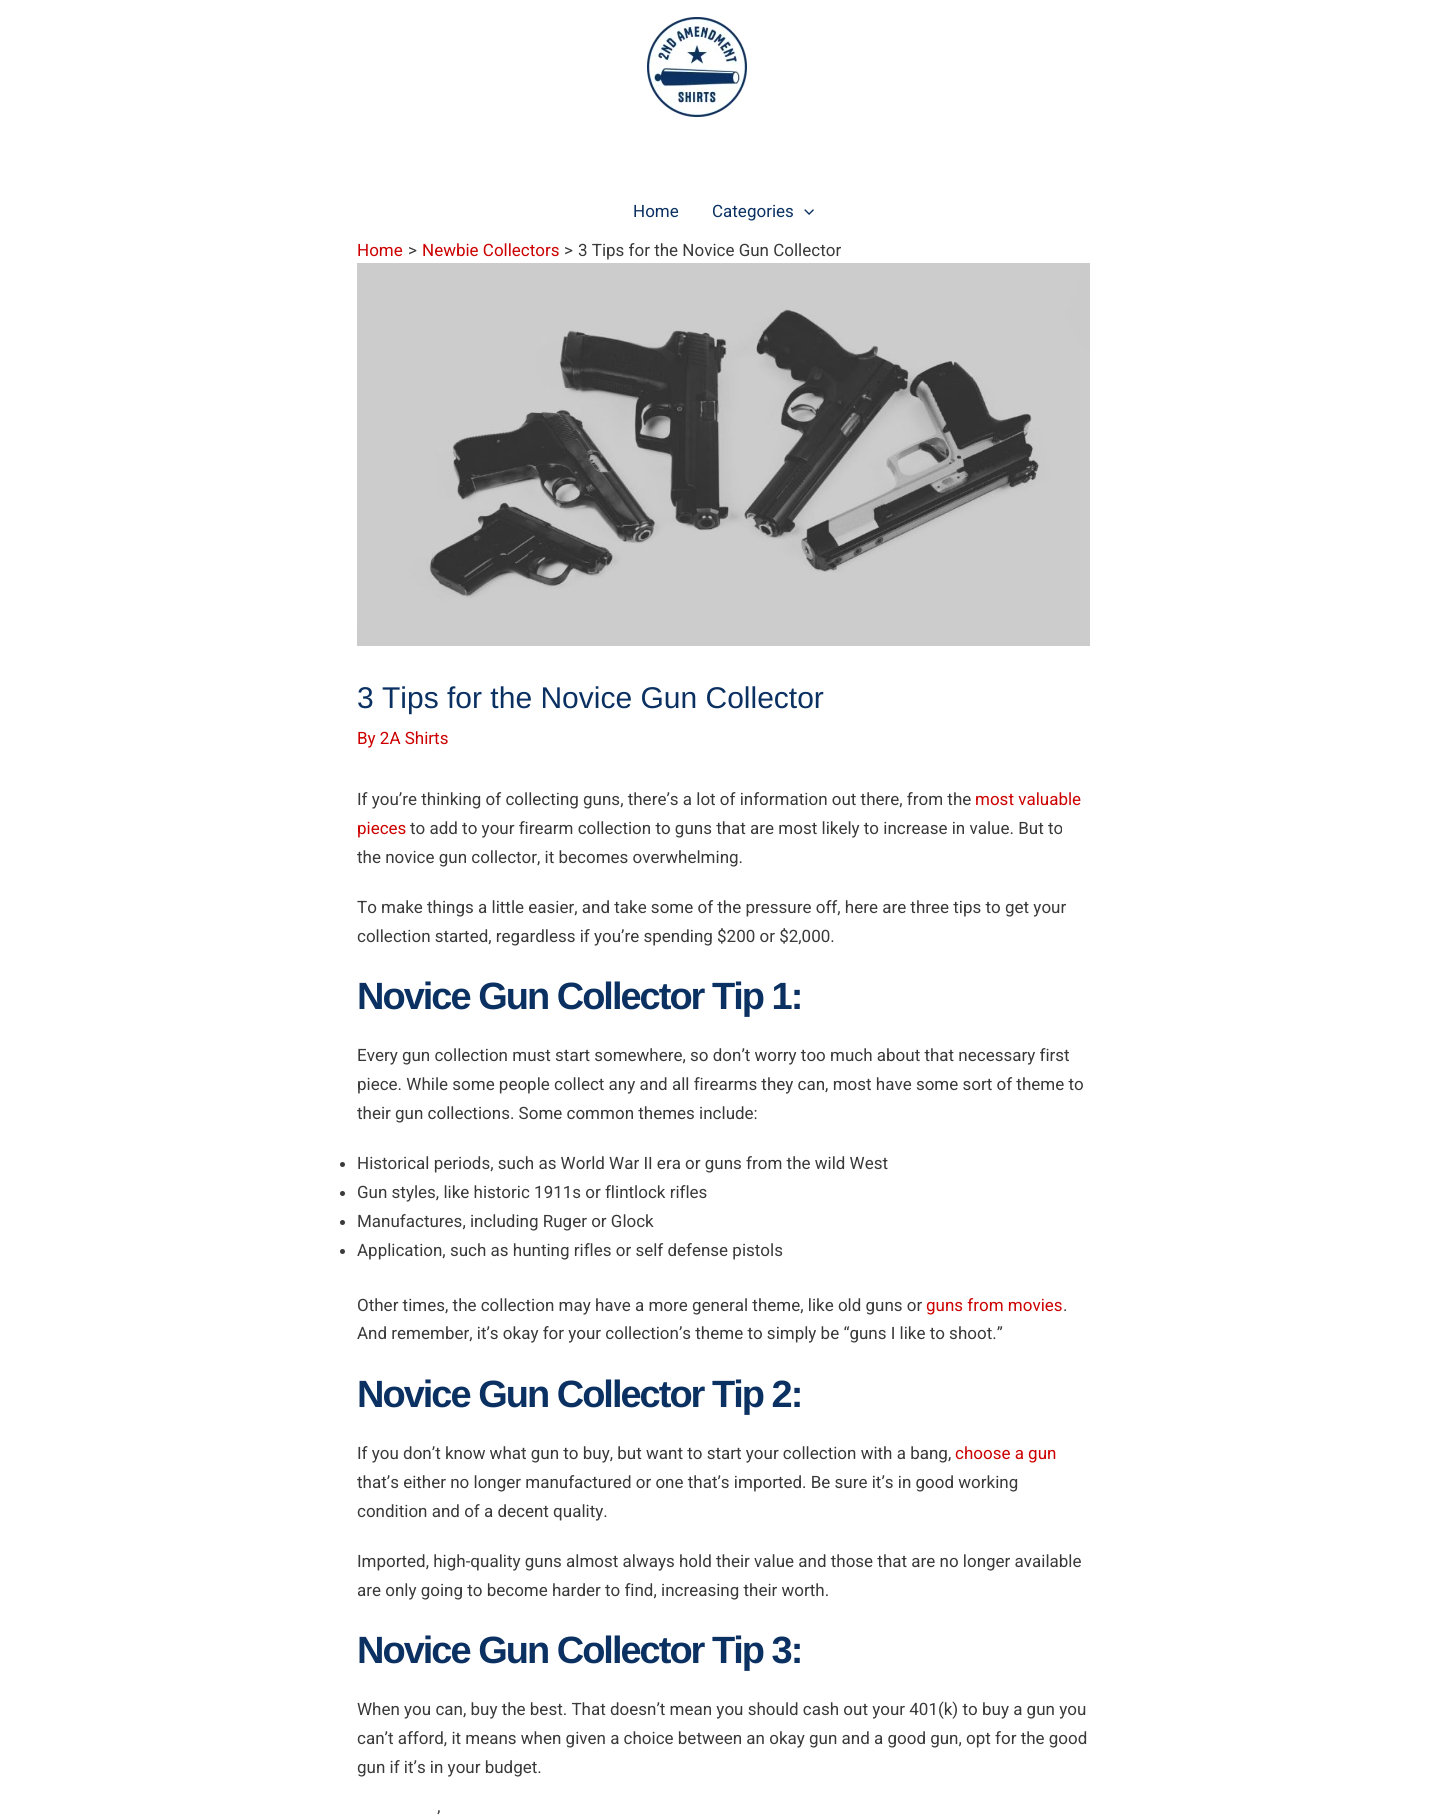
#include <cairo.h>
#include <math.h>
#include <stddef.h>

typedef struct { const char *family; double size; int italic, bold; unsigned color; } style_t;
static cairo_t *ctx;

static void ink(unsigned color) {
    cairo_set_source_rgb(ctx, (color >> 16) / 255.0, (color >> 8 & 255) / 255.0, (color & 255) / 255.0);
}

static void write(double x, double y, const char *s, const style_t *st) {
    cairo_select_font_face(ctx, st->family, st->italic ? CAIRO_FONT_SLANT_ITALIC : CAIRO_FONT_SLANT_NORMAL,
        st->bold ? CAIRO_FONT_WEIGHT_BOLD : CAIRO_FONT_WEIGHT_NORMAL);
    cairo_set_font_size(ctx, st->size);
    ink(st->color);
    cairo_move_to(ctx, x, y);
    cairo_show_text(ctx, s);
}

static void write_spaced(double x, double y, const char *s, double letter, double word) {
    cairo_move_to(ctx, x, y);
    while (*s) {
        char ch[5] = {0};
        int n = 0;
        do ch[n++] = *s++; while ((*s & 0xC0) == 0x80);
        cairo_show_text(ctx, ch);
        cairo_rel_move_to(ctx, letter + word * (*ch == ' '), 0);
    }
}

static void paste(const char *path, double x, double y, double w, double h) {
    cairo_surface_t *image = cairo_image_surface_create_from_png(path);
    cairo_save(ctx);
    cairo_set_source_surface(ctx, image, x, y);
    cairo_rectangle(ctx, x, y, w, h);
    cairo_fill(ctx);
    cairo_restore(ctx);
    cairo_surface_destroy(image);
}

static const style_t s1 = {"Roboto", 17, 0, 0, 0x0b3162};
static const style_t s2 = {"Roboto", 17, 0, 0, 0xcc0000};
static const style_t s3 = {"Roboto", 17, 0, 0, 0x3a3a3a};
static const style_t s4 = {"Liberation Sans", 30, 0, 0, 0x0b3162};

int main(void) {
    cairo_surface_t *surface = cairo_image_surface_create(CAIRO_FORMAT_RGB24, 1447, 1818);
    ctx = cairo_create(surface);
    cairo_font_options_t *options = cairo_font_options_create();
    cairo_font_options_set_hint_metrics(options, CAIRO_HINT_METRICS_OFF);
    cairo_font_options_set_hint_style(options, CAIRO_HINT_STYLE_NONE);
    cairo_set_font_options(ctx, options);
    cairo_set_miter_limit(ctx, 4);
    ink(0xffffff);
    cairo_paint(ctx);
    paste("pic1.png", 647, 17, 100, 100);
    write(633, 217, "Home", &s1);
    write(712, 217, "Categories", &s1);
    paste("pic2.png", 804, 209, 10, 6);
    write(357, 256, "Home", &s2);
    write(408, 256, ">", &s3);
    write(422, 256, "Newbie Collectors", &s2);
    write(564, 256, ">", &s3);
    write(578, 256, "3 Tips for the Novice Gun Collector", &s3);
    paste("pic3.png", 357, 263, 733, 383);
    write(357, 708, "3 Tips for the Novice Gun Collector", &s4);
    write(357, 744, "By 2A Shirts", &s2);
    write(357, 805, "If you’re thinking of collecting guns, there’s a lot of information out there, from the", &s3);
    write(975, 805, "most valuable", &s2);
    write(357, 834, "pieces", &s2);
    write(410, 834, "to add to your firearm collection to guns that are most likely to increase in value. But to", &s3);
    write(357, 863, "the novice gun collector, it becomes overwhelming.", &s3);
    write(357, 913, "To make things a little easier, and take some of the pressure off, here are three tips to get your", &s3);
    write(357, 942, "collection started, regardless if you’re spending $200 or $2,000.", &s3);
    cairo_select_font_face(ctx, "Liberation Sans", CAIRO_FONT_SLANT_NORMAL, CAIRO_FONT_WEIGHT_BOLD);
    cairo_set_font_size(ctx, 38);
    ink(0x0b3162);
    write_spaced(357, 1009, "Novice Gun Collector Tip 1:", -2, 0);
    write(357, 1061, "Every gun collection must start somewhere, so don’t worry too much about that necessary first", &s3);
    write(357, 1090, "piece. While some people collect any and all firearms they can, most have some sort of theme to", &s3);
    write(357, 1119, "their gun collections. Some common themes include:", &s3);
    cairo_new_path(ctx);
    cairo_arc(ctx, 342.5, 1164.5, 2.5, 0, 2 * M_PI);
    cairo_fill(ctx);
    write(357, 1169, "Historical periods, such as World War II era or guns from the wild West", &s3);
    cairo_new_path(ctx);
    cairo_arc(ctx, 342.5, 1193.5, 2.5, 0, 2 * M_PI);
    cairo_fill(ctx);
    write(357, 1198, "Gun styles, like historic 1911s or flintlock rifles", &s3);
    cairo_new_path(ctx);
    cairo_arc(ctx, 342.5, 1222.5, 2.5, 0, 2 * M_PI);
    cairo_fill(ctx);
    write(357, 1227, "Manufactures, including Ruger or Glock", &s3);
    cairo_new_path(ctx);
    cairo_arc(ctx, 342.5, 1251.5, 2.5, 0, 2 * M_PI);
    cairo_fill(ctx);
    write(357, 1256, "Application, such as hunting rifles or self defense pistols", &s3);
    write(357, 1311, "Other times, the collection may have a more general theme, like old guns or", &s3);
    write(926, 1311, "guns from movies", &s2);
    write(1063, 1311, ".", &s3);
    write(357, 1339, "And remember, it’s okay for your collection’s theme to simply be “guns I like to shoot.”", &s3);
    cairo_select_font_face(ctx, "Liberation Sans", CAIRO_FONT_SLANT_NORMAL, CAIRO_FONT_WEIGHT_BOLD);
    cairo_set_font_size(ctx, 38);
    ink(0x0b3162);
    write_spaced(357, 1407, "Novice Gun Collector Tip 2:", -2, 0);
    write(357, 1459, "If you don’t know what gun to buy, but want to start your collection with a bang,", &s3);
    write(955, 1459, "choose a gun", &s2);
    write(357, 1488, "that’s either no longer manufactured or one that’s imported. Be sure it’s in good working", &s3);
    write(357, 1517, "condition and of a decent quality.", &s3);
    write(357, 1567, "Imported, high-quality guns almost always hold their value and those that are no longer available", &s3);
    write(357, 1596, "are only going to become harder to find, increasing their worth.", &s3);
    cairo_select_font_face(ctx, "Liberation Sans", CAIRO_FONT_SLANT_NORMAL, CAIRO_FONT_WEIGHT_BOLD);
    cairo_set_font_size(ctx, 38);
    ink(0x0b3162);
    write_spaced(357, 1663, "Novice Gun Collector Tip 3:", -2, 0);
    write(357, 1715, "When you can, buy the best. That doesn’t mean you should cash out your 401(k) to buy a gun you", &s3);
    write(357, 1744, "can’t afford, it means when given a choice between an okay gun and a good gun, opt for the good", &s3);
    write(357, 1773, "gun if it’s in your budget.", &s3);
    write(437, 1823, "’", &s3);
    cairo_surface_write_to_png(surface, "screenshot.png");
    cairo_font_options_destroy(options);
    cairo_destroy(ctx);
    cairo_surface_destroy(surface);
    return 0;
}
